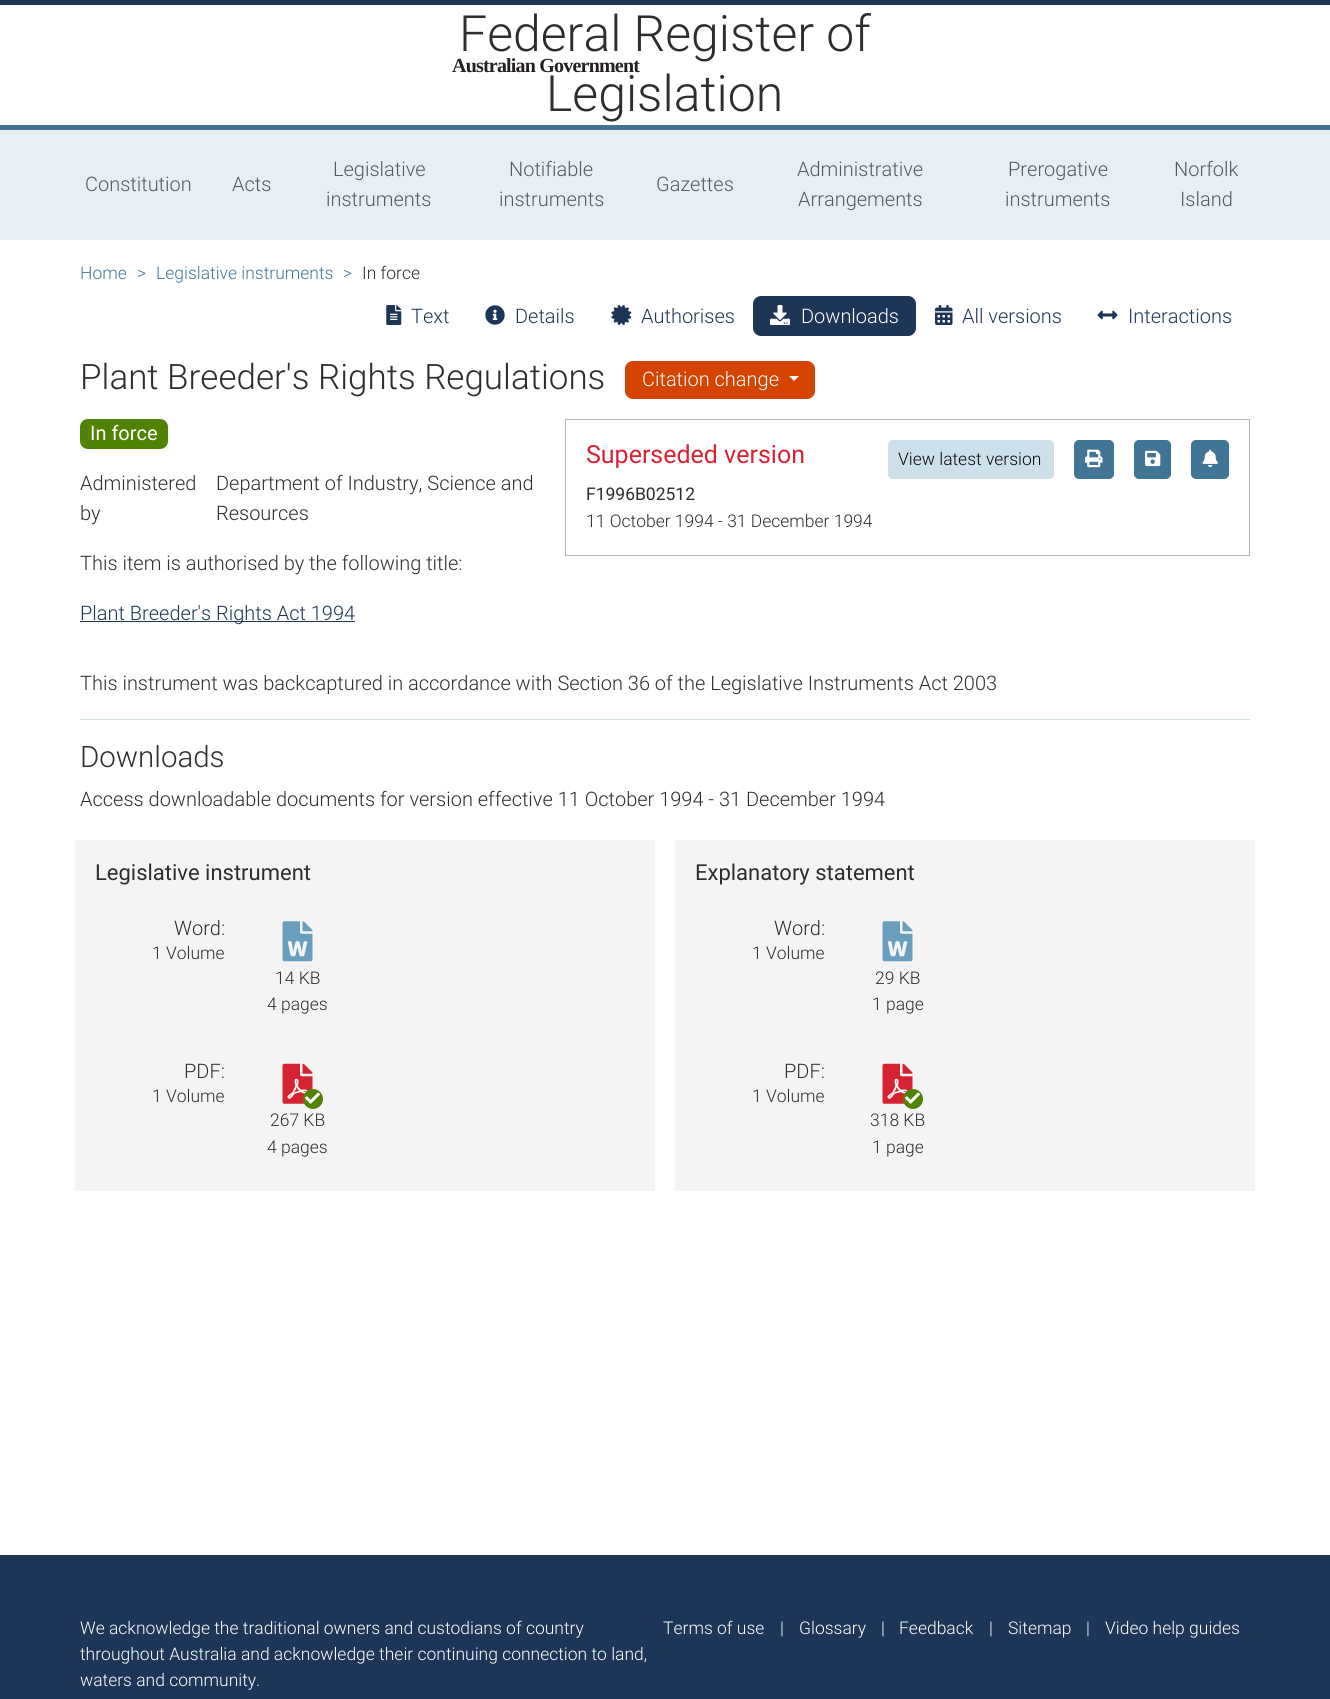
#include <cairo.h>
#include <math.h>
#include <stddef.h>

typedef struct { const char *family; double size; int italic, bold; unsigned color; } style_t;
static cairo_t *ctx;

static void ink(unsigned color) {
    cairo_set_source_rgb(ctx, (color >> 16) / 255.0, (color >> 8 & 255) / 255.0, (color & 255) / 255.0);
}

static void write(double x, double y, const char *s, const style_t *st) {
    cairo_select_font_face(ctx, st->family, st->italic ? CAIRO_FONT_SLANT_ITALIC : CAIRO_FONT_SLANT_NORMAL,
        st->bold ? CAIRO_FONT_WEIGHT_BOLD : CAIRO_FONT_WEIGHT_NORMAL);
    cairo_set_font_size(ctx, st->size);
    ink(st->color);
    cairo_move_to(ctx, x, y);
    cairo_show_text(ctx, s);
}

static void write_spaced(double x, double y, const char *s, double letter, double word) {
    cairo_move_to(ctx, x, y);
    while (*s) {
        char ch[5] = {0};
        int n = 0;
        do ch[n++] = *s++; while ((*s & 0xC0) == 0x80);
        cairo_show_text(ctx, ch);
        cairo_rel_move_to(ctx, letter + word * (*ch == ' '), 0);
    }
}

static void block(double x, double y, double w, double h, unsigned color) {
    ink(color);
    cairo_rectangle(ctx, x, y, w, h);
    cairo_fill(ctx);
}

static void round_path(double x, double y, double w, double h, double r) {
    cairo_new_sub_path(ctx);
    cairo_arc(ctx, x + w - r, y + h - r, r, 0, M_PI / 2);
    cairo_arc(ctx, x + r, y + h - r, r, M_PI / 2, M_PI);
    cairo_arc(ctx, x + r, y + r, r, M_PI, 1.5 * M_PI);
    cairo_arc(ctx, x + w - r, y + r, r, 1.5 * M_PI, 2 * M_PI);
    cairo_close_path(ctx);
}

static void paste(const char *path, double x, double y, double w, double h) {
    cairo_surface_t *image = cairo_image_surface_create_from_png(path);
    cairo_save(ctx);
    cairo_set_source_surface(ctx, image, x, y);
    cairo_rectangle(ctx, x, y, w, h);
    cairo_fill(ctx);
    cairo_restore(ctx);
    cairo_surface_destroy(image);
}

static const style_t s1 = {"Roboto Light", 50, 0, 0, 0x2d2d31};
static const style_t s2 = {"Roboto Light", 20, 0, 0, 0x56595e};
static const style_t s3 = {"Roboto Light", 17.5, 0, 0, 0x417595};
static const style_t s4 = {"Roboto Light", 17.5, 0, 0, 0x2d2d31};
static const style_t s5 = {"Roboto Light", 20, 0, 0, 0x1d3557};
static const style_t s6 = {"Roboto Light", 20, 0, 0, 0xffffff};
static const style_t s7 = {"Roboto Light", 35, 0, 0, 0x2d2d31};
static const style_t s8 = {"Roboto", 20, 0, 0, 0xffffff};
static const style_t s9 = {"Roboto Light", 20, 0, 0, 0x2d2d31};
static const style_t s10 = {"Roboto", 25, 0, 0, 0xd62332};
static const style_t s11 = {"Roboto Light", 17.5, 0, 0, 0x08080d};
static const style_t s12 = {"Roboto", 17.5, 0, 0, 0x2d2d31};
static const style_t s13 = {"Roboto Light", 29.5, 0, 0, 0x2d2d31};
static const style_t s14 = {"Roboto", 22, 0, 0, 0x2d2d31};
static const style_t s15 = {"Roboto Light", 17.5, 0, 0, 0xffffff};

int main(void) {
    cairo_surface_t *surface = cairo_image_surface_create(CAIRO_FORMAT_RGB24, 1330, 1699);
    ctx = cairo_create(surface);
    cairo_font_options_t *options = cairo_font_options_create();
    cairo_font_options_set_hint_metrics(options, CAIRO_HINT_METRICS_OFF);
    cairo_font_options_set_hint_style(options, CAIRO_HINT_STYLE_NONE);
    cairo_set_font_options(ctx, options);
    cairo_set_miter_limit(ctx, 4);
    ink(0xffffff);
    cairo_paint(ctx);
    block(0, 125, 1330, 5, 0x417595);
    block(0, 0, 1330, 5, 0x1d3557);
    write(459, 51, "Federal Register of", &s1);
    write(546, 111, "Legislation", &s1);
    cairo_select_font_face(ctx, "Liberation Serif", CAIRO_FONT_SLANT_NORMAL, CAIRO_FONT_WEIGHT_BOLD);
    cairo_set_font_size(ctx, 20);
    ink(0x23201f);
    write_spaced(452, 72, "Australian Government", -0.8, 0);
    block(0, 130, 1330, 110, 0xe6eff4);
    write(85, 191, "Constitution", &s2);
    write(232, 191, "Acts", &s2);
    write(333, 176, "Legislative", &s2);
    write(326, 206, "instruments", &s2);
    write(509, 176, "Notifiable", &s2);
    write(499, 206, "instruments", &s2);
    write(656, 191, "Gazettes", &s2);
    write(797, 176, "Administrative", &s2);
    write(798, 206, "Arrangements", &s2);
    write(1008, 176, "Prerogative", &s2);
    write(1005, 206, "instruments", &s2);
    write(1174, 176, "Norfolk", &s2);
    write(1180, 206, "Island", &s2);
    write(80, 279, "Home", &s3);
    write(137, 279, ">", &s3);
    write(156, 279, "Legislative instruments", &s3);
    write(343, 279, ">", &s3);
    write(362, 279, "In force", &s4);
    paste("pic1.png", 386, 305, 16, 20);
    write(411, 323, "Text", &s5);
    paste("pic2.png", 485, 305, 20, 20);
    write(515, 323, "Details", &s5);
    paste("pic3.png", 611, 305, 21, 20);
    write(641, 323, "Authorises", &s5);
    round_path(753, 296, 163, 40, 8);
    cairo_fill(ctx);
    paste("pic4.png", 770, 305, 20, 20);
    write(801, 323, "Downloads", &s6);
    paste("pic5.png", 935, 305, 18, 20);
    write(962, 323, "All versions", &s5);
    paste("pic6.png", 1097, 310, 21, 10);
    write(1128, 323, "Interactions", &s5);
    write(80, 389, "Plant Breeder's Rights Regulations", &s7);
    ink(0xd54400);
    round_path(625.5, 361.5, 189, 37, 7.5);
    cairo_fill_preserve(ctx);
    cairo_set_line_width(ctx, 1);
    cairo_stroke(ctx);
    write(642, 386, "Citation change", &s6);
    cairo_new_path(ctx);
    cairo_move_to(ctx, 789, 376);
    cairo_line_to(ctx, 799, 376);
    cairo_line_to(ctx, 794, 381);
    cairo_close_path(ctx);
    cairo_fill(ctx);
    ink(0x518302);
    round_path(80, 419, 88, 30, 8);
    cairo_fill(ctx);
    write(90, 440, "In force", &s8);
    write(80, 490, "Administered", &s9);
    write(80, 520, "by", &s9);
    write(216, 490, "Department of Industry, Science and", &s9);
    write(216, 520, "Resources", &s9);
    write(80, 570, "This item is authorised by the following title:", &s9);
    block(80, 621, 275, 1, 0x1d3557);
    write(80, 620, "Plant Breeder's Rights Act 1994", &s5);
    cairo_rectangle(ctx, 565.5, 419.5, 684, 136);
    ink(0xb5b5b6);
    cairo_stroke(ctx);
    write(586, 463, "Superseded version", &s10);
    ink(0xcddfe9);
    round_path(888.5, 440.5, 165, 38, 4.5);
    cairo_fill_preserve(ctx);
    cairo_stroke(ctx);
    write(898, 465, "View latest version", &s11);
    ink(0x417595);
    round_path(1074.5, 440.5, 39, 38, 4.5);
    cairo_fill_preserve(ctx);
    cairo_stroke(ctx);
    paste("pic7.png", 1085, 449, 18, 19);
    round_path(1134.5, 440.5, 36, 38, 4.5);
    cairo_fill_preserve(ctx);
    cairo_stroke(ctx);
    paste("pic8.png", 1145, 450, 16, 17);
    round_path(1191.5, 440.5, 37, 38, 4.5);
    cairo_fill_preserve(ctx);
    cairo_stroke(ctx);
    paste("pic9.png", 1202, 449, 16, 19);
    write(586, 500, "F1996B02512", &s12);
    write(586, 527, "11 October 1994 - 31 December 1994", &s4);
    write(80, 690, "This instrument was backcaptured in accordance with Section 36 of the Legislative Instruments Act 2003", &s9);
    block(80, 719, 1170, 1, 0xd0dde5);
    write(80, 767, "Downloads", &s13);
    write(80, 806, "Access downloadable documents for version effective 11 October 1994 - 31 December 1994", &s9);
    block(75, 840, 580, 351, 0xf4f4f4);
    write(95, 880, "Legislative instrument", &s14);
    write(174, 935, "Word:", &s9);
    write(152, 959, "1 Volume", &s4);
    paste("pic10.png", 282, 921, 31, 41);
    write(275, 984, "14 KB", &s4);
    write(267, 1010, "4 pages", &s4);
    write(184, 1078, "PDF:", &s9);
    write(152, 1102, "1 Volume", &s4);
    paste("pic11.png", 282, 1063, 31, 41);
    ink(0x518302);
    cairo_arc(ctx, 313, 1099, 10, 0, 2 * M_PI);
    cairo_fill(ctx);
    paste("pic12.png", 305, 1092, 15, 12);
    write(270, 1126, "267 KB", &s4);
    write(267, 1153, "4 pages", &s4);
    block(675, 840, 580, 351, 0xf4f4f4);
    write(695, 880, "Explanatory statement", &s14);
    write(774, 935, "Word:", &s9);
    write(752, 959, "1 Volume", &s4);
    paste("pic10.png", 882, 921, 31, 41);
    write(875, 984, "29 KB", &s4);
    write(872, 1010, "1 page", &s4);
    write(784, 1078, "PDF:", &s9);
    write(752, 1102, "1 Volume", &s4);
    paste("pic11.png", 882, 1063, 31, 41);
    ink(0x518302);
    cairo_arc(ctx, 913, 1099, 10, 0, 2 * M_PI);
    cairo_fill(ctx);
    paste("pic12.png", 905, 1092, 15, 12);
    write(870, 1126, "318 KB", &s4);
    write(872, 1153, "1 page", &s4);
    block(0, 1555, 1330, 144, 0x1d3557);
    write(80, 1634, "We acknowledge the traditional owners and custodians of country", &s15);
    write(80, 1660, "throughout Australia and acknowledge their continuing connection to land,", &s15);
    write(80, 1686, "waters and community.", &s15);
    write(663, 1634, "Terms of use", &s15);
    write(780, 1634, "|", &s15);
    write(799, 1634, "Glossary", &s15);
    write(881, 1634, "|", &s15);
    write(899, 1634, "Feedback", &s15);
    write(989, 1634, "|", &s15);
    write(1008, 1634, "Sitemap", &s15);
    write(1086, 1634, "|", &s15);
    write(1105, 1634, "Video help guides", &s15);
    cairo_surface_write_to_png(surface, "screenshot.png");
    cairo_font_options_destroy(options);
    cairo_destroy(ctx);
    cairo_surface_destroy(surface);
    return 0;
}
